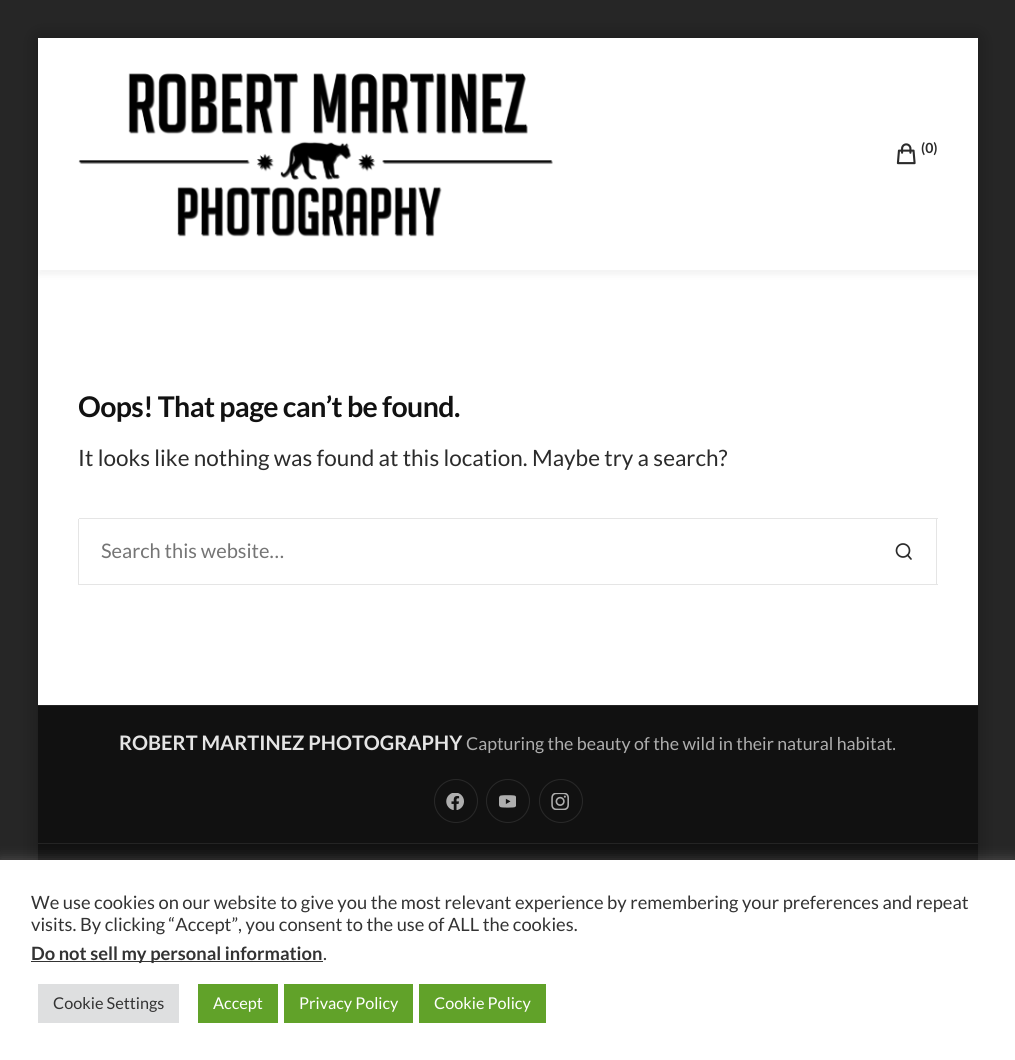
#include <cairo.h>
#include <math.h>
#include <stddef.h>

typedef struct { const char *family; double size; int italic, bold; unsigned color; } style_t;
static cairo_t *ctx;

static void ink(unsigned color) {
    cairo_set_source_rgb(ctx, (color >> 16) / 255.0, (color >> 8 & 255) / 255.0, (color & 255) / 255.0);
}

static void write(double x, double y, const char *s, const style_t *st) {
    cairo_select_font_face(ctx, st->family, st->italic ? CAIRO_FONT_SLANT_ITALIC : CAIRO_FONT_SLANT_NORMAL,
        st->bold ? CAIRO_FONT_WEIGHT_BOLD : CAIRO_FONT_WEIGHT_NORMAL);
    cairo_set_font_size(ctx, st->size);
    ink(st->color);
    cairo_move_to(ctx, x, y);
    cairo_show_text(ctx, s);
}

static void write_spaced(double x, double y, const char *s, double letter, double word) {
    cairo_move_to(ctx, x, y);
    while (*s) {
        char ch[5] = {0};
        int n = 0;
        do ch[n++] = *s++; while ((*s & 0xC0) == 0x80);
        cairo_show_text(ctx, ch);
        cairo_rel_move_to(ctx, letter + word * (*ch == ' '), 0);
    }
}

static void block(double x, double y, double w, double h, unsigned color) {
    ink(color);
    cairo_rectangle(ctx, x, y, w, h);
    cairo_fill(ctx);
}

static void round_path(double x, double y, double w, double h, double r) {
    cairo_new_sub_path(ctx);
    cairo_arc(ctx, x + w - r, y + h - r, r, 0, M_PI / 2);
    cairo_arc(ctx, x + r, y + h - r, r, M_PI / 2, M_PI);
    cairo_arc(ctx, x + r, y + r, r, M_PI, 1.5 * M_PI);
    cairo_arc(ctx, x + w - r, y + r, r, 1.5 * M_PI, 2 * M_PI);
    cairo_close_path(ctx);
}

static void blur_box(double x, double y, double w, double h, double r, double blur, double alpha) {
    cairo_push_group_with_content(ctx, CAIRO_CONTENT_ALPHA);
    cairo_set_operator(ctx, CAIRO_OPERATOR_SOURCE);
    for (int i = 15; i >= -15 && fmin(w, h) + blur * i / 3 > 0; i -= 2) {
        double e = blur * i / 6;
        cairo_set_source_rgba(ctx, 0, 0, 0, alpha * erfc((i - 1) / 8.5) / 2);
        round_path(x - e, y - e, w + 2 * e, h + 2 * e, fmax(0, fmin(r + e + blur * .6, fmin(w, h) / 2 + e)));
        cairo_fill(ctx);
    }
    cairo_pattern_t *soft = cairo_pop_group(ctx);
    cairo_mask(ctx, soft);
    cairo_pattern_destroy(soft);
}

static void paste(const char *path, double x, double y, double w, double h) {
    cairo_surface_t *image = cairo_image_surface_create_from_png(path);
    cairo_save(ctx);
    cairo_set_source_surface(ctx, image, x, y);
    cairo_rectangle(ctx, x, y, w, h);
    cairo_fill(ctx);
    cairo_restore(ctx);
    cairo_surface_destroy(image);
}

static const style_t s1 = {"Lato", 14, 0, 1, 0x2b2b2b};
static const style_t s2 = {"Lato", 22.5, 0, 0, 0x2b2b2b};
static const style_t s3 = {"Lato", 20, 0, 0, 0x757575};
static const style_t s4 = {"Lato", 20, 0, 1, 0xe5e5e5};
static const style_t s5 = {"Lato", 17.75, 0, 0, 0xaeaeae};
static const style_t s6 = {"Lato", 18.33, 0, 0, 0x333333};
static const style_t s7 = {"Lato", 18.33, 0, 1, 0x333333};
static const style_t s8 = {"Lato", 16.25, 0, 0, 0x333333};
static const style_t s9 = {"Lato", 16.25, 0, 0, 0xffffff};

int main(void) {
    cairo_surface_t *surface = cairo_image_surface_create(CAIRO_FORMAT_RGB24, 1015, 1060);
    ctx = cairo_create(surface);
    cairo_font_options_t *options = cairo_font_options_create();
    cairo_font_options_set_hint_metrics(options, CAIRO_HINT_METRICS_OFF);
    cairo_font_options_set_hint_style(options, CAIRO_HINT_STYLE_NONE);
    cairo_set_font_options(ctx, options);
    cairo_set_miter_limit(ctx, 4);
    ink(0x262626);
    cairo_paint(ctx);
    ink(0x000000);
    blur_box(38, 38, 940, 916, 0, 9.5, 0.3);
    block(38, 270, 940, 435, 0xffffff);
    ink(0x000000);
    blur_box(38, 43, 940, 232, 0, 3, 0.05);
    block(38, 38, 940, 232, 0xffffff);
    paste("pic1.png", 78, 73, 475, 164);
    paste("pic2.png", 896, 143, 20, 22);
    write(921, 153, "(0)", &s1);
    cairo_set_font_size(ctx, 28.5);
    ink(0x111111);
    write_spaced(78, 417, "Oops! That page can’t be found.", -0.6, 0);
    write(78, 466, "It looks like nothing was found at this location. Maybe try a search?", &s2);
    block(79, 518, 859, 1, 0xe5e5e5);
    block(79, 584, 792, 1, 0xe5e5e5);
    block(78, 519, 1, 66, 0xe5e5e5);
    write(101, 558, "Search this website…", &s3);
    block(936, 518, 1, 67, 0xe5e5e5);
    block(871, 584, 67, 1, 0xe5e5e5);
    cairo_new_path(ctx);
    cairo_arc(ctx, 903, 550.5, 6.5, 0, 2 * M_PI);
    ink(0x2b2b2b);
    cairo_set_line_width(ctx, 1.7);
    cairo_stroke(ctx);
    cairo_new_path(ctx);
    cairo_move_to(ctx, 911, 559);
    cairo_line_to(ctx, 907.5, 555);
    cairo_set_line_cap(ctx, CAIRO_LINE_CAP_ROUND);
    cairo_set_line_join(ctx, CAIRO_LINE_JOIN_ROUND);
    cairo_stroke(ctx);
    block(38, 706, 940, 154, 0x111111);
    block(38, 705, 940, 1, 0x242424);
    write(119, 750, "ROBERT MARTINEZ PHOTOGRAPHY", &s4);
    write(466, 750, "Capturing the beauty of the wild in their natural habitat.", &s5);
    cairo_new_path(ctx);
    cairo_arc(ctx, 456, 801, 21.5, 0, 2 * M_PI);
    ink(0x292929);
    cairo_set_line_width(ctx, 1);
    cairo_set_line_cap(ctx, CAIRO_LINE_CAP_BUTT);
    cairo_set_line_join(ctx, CAIRO_LINE_JOIN_MITER);
    cairo_stroke(ctx);
    paste("pic3.png", 446, 793, 18, 17);
    cairo_arc(ctx, 508, 801, 21.5, 0, 2 * M_PI);
    cairo_stroke(ctx);
    paste("pic4.png", 499, 795, 17, 13);
    cairo_arc(ctx, 561, 801, 21.5, 0, 2 * M_PI);
    cairo_stroke(ctx);
    paste("pic5.png", 551, 793, 18, 17);
    block(38, 843, 940, 1, 0x242424);
    ink(0xacabab);
    blur_box(0, 859, 1015, 200, 0, 6, 0.3);
    block(0, 860, 1015, 200, 0xffffff);
    write(31, 909, "We use cookies on our website to give you the most relevant experience by remembering your preferences and repeat", &s6);
    write(31, 931, "visits. By clicking “Accept”, you consent to the use of ALL the cookies.", &s6);
    block(31, 961, 292, 1, 0x333333);
    write(31, 960, "Do not sell my personal information", &s7);
    write(323, 960, ".", &s6);
    block(38, 984, 141, 39, 0xdedfe0);
    write(53, 1009, "Cookie Settings", &s8);
    block(198, 984, 80, 39, 0x61a229);
    write(213, 1009, "Accept", &s9);
    block(284, 984, 129, 39, 0x61a229);
    write(299, 1009, "Privacy Policy", &s9);
    block(419, 984, 127, 39, 0x61a229);
    write(434, 1009, "Cookie Policy", &s9);
    cairo_surface_write_to_png(surface, "screenshot.png");
    cairo_font_options_destroy(options);
    cairo_destroy(ctx);
    cairo_surface_destroy(surface);
    return 0;
}
